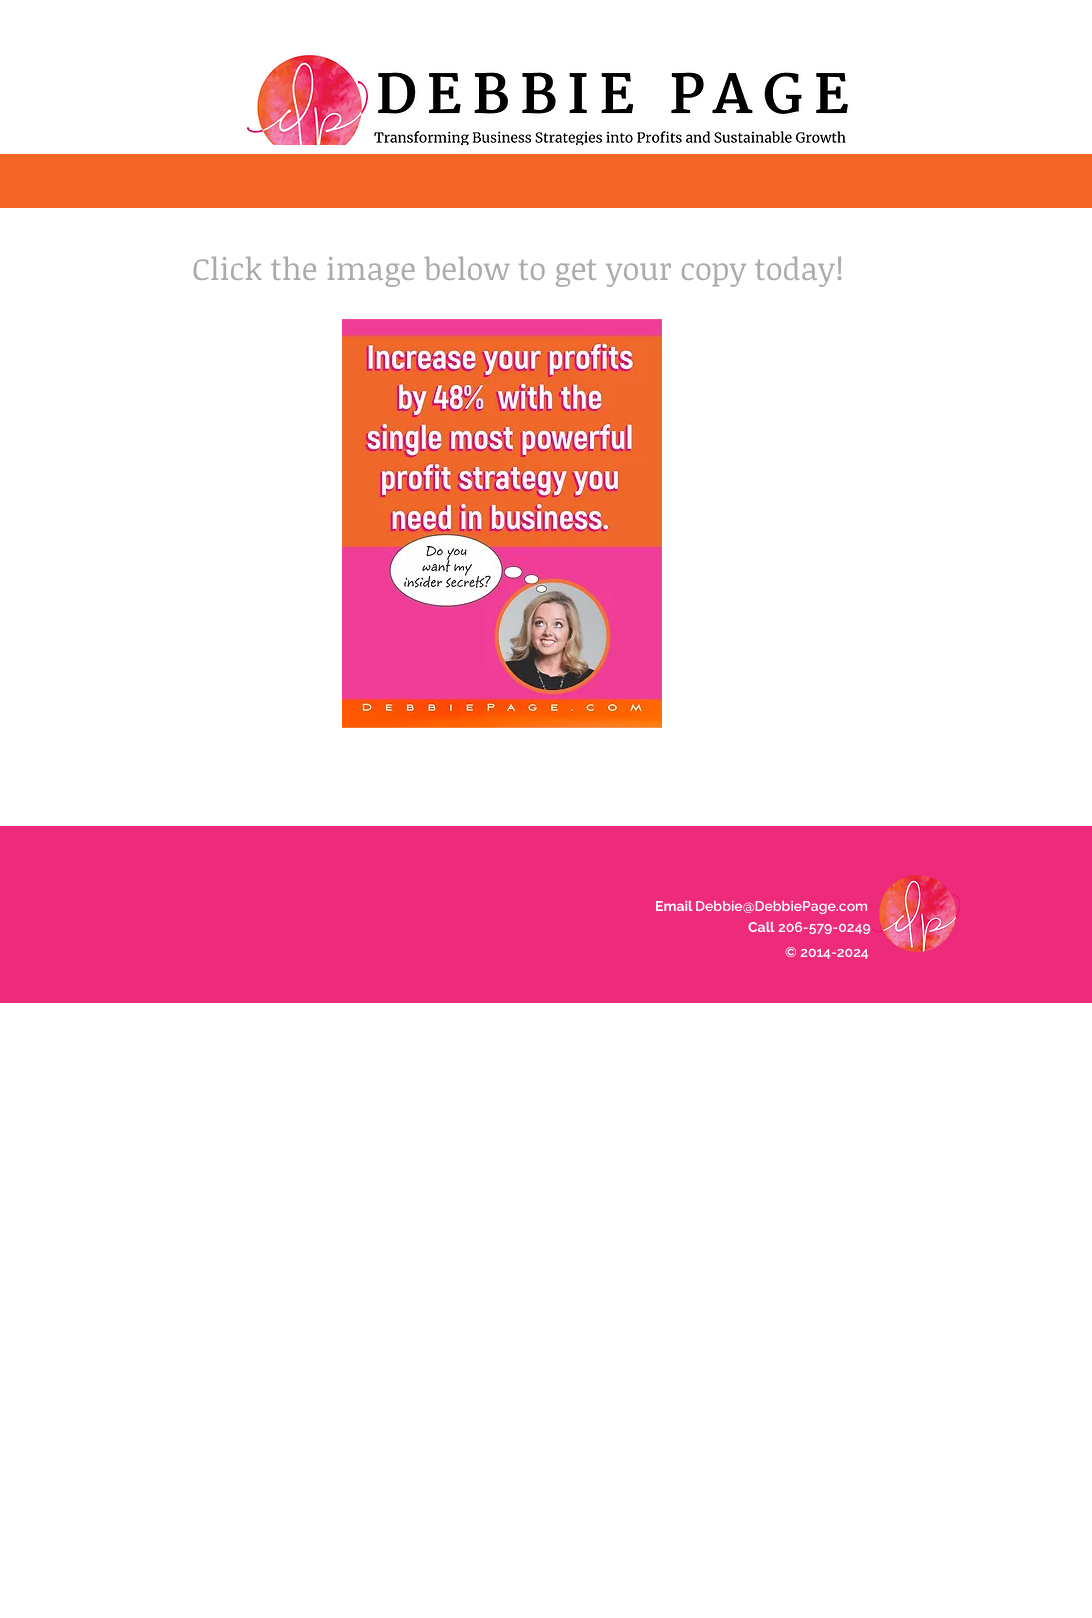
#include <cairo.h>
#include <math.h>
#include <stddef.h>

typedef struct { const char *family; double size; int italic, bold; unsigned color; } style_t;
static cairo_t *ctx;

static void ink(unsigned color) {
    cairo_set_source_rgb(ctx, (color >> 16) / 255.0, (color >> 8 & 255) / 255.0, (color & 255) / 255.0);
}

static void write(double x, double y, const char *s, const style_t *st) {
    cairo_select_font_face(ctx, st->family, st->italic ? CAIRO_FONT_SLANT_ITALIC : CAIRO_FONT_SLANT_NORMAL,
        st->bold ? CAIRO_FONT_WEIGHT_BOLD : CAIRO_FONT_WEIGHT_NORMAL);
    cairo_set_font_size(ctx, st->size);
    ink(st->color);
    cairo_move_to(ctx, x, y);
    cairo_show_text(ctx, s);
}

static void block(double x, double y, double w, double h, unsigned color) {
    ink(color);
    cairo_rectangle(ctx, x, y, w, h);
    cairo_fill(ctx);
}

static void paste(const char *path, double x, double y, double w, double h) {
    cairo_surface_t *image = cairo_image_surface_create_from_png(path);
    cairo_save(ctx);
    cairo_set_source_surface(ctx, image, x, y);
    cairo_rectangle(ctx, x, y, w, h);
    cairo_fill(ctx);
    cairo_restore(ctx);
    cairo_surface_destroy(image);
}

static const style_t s1 = {"Noticia Text", 31, 0, 0, 0xababab};
static const style_t s2 = {"Raleway", 14, 0, 1, 0xffffff};
static const style_t s3 = {"Raleway SemiBold", 14, 0, 0, 0xffffff};

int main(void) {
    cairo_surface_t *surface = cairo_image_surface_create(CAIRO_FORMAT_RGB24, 1092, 1618);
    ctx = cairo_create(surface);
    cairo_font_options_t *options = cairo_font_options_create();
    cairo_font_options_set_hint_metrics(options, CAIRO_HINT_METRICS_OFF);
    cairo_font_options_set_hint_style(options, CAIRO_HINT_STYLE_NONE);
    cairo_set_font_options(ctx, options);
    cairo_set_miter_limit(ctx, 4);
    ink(0xffffff);
    cairo_paint(ctx);
    paste("pic1.png", 246, 53, 604, 92);
    block(0, 154, 1092, 54, 0xf26522);
    write(192, 280, "Click the image below to get your copy today!", &s1);
    paste("pic2.png", 342, 319, 320, 409);
    block(0, 826, 1092, 177, 0xee2a7b);
    write(655, 911, "Email", &s2);
    write(695, 911, "Debbie@DebbiePage.com", &s3);
    write(748, 932, "Call", &s2);
    write(778, 932, "206-579-0249", &s3);
    paste("pic3.png", 872, 875, 88, 77);
    write(785, 957, "© 2014-2024", &s3);
    cairo_surface_write_to_png(surface, "screenshot.png");
    cairo_font_options_destroy(options);
    cairo_destroy(ctx);
    cairo_surface_destroy(surface);
    return 0;
}
